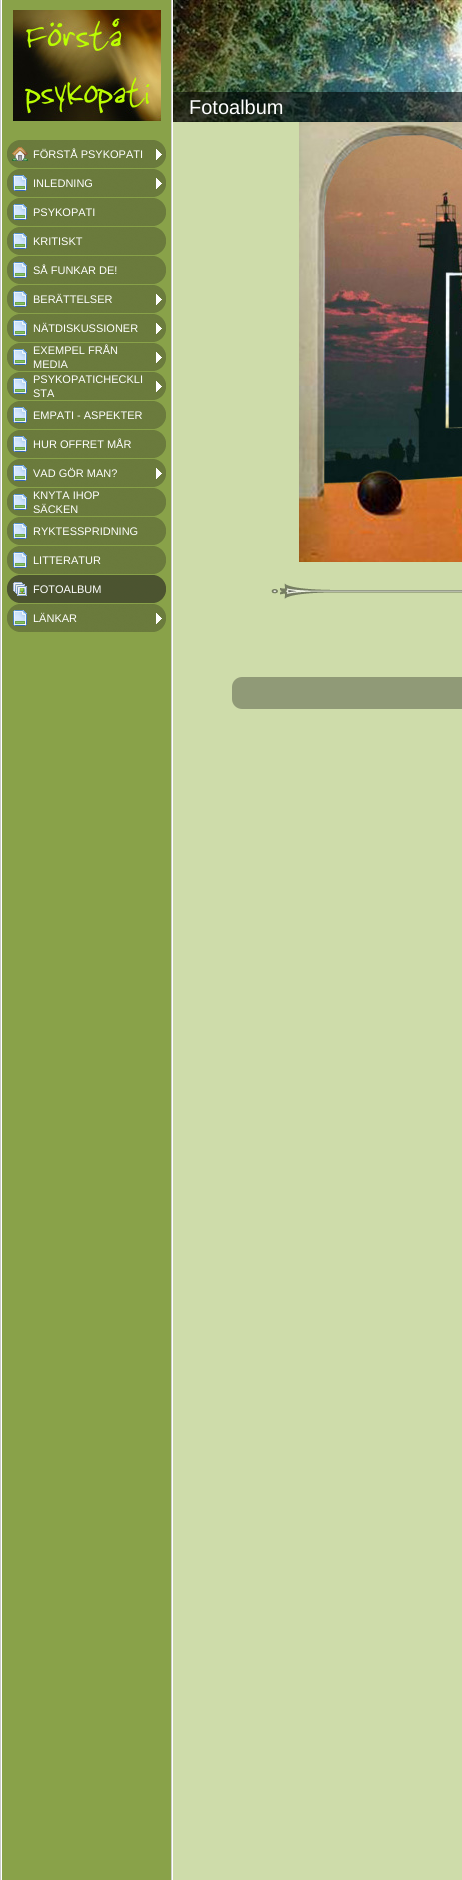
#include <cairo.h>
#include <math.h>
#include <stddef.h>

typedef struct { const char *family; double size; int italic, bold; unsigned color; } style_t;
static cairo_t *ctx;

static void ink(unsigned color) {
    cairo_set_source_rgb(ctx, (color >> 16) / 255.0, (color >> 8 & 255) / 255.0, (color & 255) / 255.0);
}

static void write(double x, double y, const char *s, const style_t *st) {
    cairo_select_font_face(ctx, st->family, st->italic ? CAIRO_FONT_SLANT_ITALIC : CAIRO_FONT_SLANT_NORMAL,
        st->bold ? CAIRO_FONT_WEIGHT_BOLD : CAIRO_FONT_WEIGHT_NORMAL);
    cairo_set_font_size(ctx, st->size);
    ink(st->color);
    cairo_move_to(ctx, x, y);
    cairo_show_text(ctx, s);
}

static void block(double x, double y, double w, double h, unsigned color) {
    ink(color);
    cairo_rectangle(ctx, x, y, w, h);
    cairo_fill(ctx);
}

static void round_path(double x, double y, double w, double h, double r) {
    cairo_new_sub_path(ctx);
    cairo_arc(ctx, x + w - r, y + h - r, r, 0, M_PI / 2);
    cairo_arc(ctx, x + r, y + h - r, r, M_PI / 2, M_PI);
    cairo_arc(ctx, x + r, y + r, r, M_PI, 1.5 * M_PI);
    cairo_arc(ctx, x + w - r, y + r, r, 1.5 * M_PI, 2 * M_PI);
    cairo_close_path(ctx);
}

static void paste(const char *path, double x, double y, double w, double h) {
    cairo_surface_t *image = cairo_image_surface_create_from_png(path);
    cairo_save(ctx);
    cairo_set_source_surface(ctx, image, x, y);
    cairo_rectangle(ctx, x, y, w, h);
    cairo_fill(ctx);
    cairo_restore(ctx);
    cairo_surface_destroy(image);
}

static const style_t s1 = {"Liberation Sans", 20, 0, 0, 0xffffff};
static const style_t s2 = {"Liberation Sans", 11, 0, 0, 0xffffff};

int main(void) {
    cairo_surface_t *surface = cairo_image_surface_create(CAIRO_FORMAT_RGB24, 462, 1880);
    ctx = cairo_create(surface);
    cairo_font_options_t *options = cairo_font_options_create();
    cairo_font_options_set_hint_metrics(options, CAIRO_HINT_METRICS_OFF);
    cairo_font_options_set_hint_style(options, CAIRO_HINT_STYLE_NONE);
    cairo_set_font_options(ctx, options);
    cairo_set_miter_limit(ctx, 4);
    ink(0xffffff);
    cairo_paint(ctx);
    block(0, 0, 1, 1880, 0xcccccc);
    block(171, 0, 1, 1880, 0xcccccc);
    block(173, 122, 289, 1758, 0xcedcaa);
    paste("pic1.png", 173, 0, 289, 122);
    cairo_set_source_rgba(ctx, 0, 0, 0, 0.6);
    cairo_rectangle(ctx, 173, 92, 289, 30);
    cairo_fill(ctx);
    write(189, 114, "Fotoalbum", &s1);
    paste("pic2.png", 299, 122, 163, 440);
    paste("pic3.png", 271, 583, 191, 16);
    ink(0x909a77);
    round_path(232, 677, 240, 32, 10);
    cairo_fill(ctx);
    block(2, 0, 169, 1880, 0x89a249);
    paste("pic4.png", 13, 10, 148, 111);
    paste("pic5.png", 7, 140, 159, 28);
    paste("pic6.png", 12, 147, 16, 14);
    paste("pic7.png", 156, 149, 6, 11);
    write(33, 158, "FÖRSTÅ PSYKOPATI", &s2);
    paste("pic5.png", 7, 169, 159, 28);
    paste("pic8.png", 13, 175, 14, 16);
    paste("pic7.png", 156, 178, 6, 11);
    write(33, 187, "INLEDNING", &s2);
    paste("pic5.png", 7, 198, 159, 28);
    paste("pic8.png", 13, 204, 14, 16);
    write(33, 216, "PSYKOPATI", &s2);
    paste("pic5.png", 7, 227, 159, 28);
    paste("pic8.png", 13, 233, 14, 16);
    write(33, 245, "KRITISKT", &s2);
    paste("pic5.png", 7, 256, 159, 28);
    paste("pic8.png", 13, 262, 14, 16);
    write(33, 274, "SÅ FUNKAR DE!", &s2);
    paste("pic5.png", 7, 285, 159, 28);
    paste("pic8.png", 13, 291, 14, 16);
    paste("pic7.png", 156, 294, 6, 11);
    write(33, 303, "BERÄTTELSER", &s2);
    paste("pic5.png", 7, 314, 159, 28);
    paste("pic8.png", 13, 320, 14, 16);
    paste("pic7.png", 156, 323, 6, 11);
    write(33, 332, "NÄTDISKUSSIONER", &s2);
    paste("pic5.png", 7, 343, 159, 28);
    paste("pic8.png", 13, 349, 14, 16);
    paste("pic7.png", 156, 352, 6, 11);
    write(33, 354, "EXEMPEL FRÅN", &s2);
    write(33, 368, "MEDIA", &s2);
    paste("pic5.png", 7, 372, 159, 28);
    paste("pic8.png", 13, 378, 14, 16);
    paste("pic7.png", 156, 381, 6, 11);
    write(33, 383, "PSYKOPATICHECKLI", &s2);
    write(33, 397, "STA", &s2);
    paste("pic5.png", 7, 401, 159, 28);
    paste("pic8.png", 13, 407, 14, 16);
    write(33, 419, "EMPATI - ASPEKTER", &s2);
    paste("pic5.png", 7, 430, 159, 28);
    paste("pic8.png", 13, 436, 14, 16);
    write(33, 448, "HUR OFFRET MÅR", &s2);
    paste("pic5.png", 7, 459, 159, 28);
    paste("pic8.png", 13, 465, 14, 16);
    paste("pic7.png", 156, 468, 6, 11);
    write(33, 477, "VAD GÖR MAN?", &s2);
    paste("pic5.png", 7, 488, 159, 28);
    paste("pic8.png", 13, 494, 14, 16);
    write(33, 499, "KNYTA IHOP", &s2);
    write(33, 513, "SÄCKEN", &s2);
    paste("pic5.png", 7, 517, 159, 28);
    paste("pic8.png", 13, 523, 14, 16);
    write(33, 535, "RYKTESSPRIDNING", &s2);
    paste("pic5.png", 7, 546, 159, 28);
    paste("pic8.png", 13, 552, 14, 16);
    write(33, 564, "LITTERATUR", &s2);
    paste("pic9.png", 7, 575, 159, 28);
    paste("pic10.png", 13, 582, 14, 14);
    write(33, 593, "FOTOALBUM", &s2);
    paste("pic5.png", 7, 604, 159, 28);
    paste("pic8.png", 13, 610, 14, 16);
    paste("pic7.png", 156, 613, 6, 11);
    write(33, 622, "LÄNKAR", &s2);
    cairo_surface_write_to_png(surface, "screenshot.png");
    cairo_font_options_destroy(options);
    cairo_destroy(ctx);
    cairo_surface_destroy(surface);
    return 0;
}
